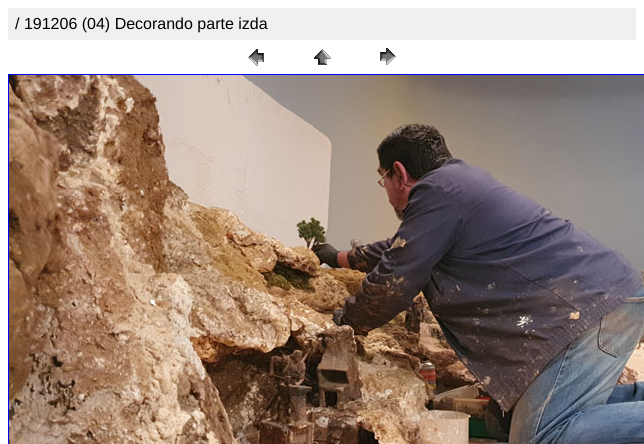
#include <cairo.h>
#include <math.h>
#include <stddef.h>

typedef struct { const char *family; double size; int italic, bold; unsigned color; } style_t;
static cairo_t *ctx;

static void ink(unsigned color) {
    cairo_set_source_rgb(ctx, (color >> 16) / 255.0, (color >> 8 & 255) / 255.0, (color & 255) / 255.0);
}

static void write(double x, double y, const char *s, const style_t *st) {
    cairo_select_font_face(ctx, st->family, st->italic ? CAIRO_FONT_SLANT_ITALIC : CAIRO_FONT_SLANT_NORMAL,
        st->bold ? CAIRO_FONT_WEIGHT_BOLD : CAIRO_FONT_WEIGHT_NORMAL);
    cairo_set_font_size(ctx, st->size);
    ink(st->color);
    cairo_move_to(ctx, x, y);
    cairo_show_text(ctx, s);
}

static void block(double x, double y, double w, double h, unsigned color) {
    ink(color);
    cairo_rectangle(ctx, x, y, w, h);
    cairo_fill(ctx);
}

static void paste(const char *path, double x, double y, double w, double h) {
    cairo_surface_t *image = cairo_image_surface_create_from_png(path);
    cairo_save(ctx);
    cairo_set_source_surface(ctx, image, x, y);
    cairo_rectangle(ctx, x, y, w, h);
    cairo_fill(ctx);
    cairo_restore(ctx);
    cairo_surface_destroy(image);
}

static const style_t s1 = {"Liberation Sans", 16, 0, 0, 0x000000};

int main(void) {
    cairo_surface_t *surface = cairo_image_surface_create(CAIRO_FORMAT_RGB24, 644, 444);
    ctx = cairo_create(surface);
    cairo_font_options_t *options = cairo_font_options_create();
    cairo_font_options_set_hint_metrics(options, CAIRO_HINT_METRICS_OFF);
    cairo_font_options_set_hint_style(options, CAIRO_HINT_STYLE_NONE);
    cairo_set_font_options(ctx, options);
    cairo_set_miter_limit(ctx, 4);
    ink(0xffffff);
    cairo_paint(ctx);
    block(8, 8, 628, 32, 0xf0f0f0);
    write(15, 29, "/ 191206 (04) Decorando parte izda", &s1);
    paste("pic1.png", 248, 49, 16, 17);
    paste("pic2.png", 314, 49, 17, 16);
    paste("pic3.png", 380, 48, 16, 17);
    cairo_rectangle(ctx, 8.5, 74.5, 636, 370);
    ink(0x0000ff);
    cairo_set_line_width(ctx, 1);
    cairo_stroke(ctx);
    paste("pic4.png", 9, 75, 635, 369);
    cairo_surface_write_to_png(surface, "screenshot.png");
    cairo_font_options_destroy(options);
    cairo_destroy(ctx);
    cairo_surface_destroy(surface);
    return 0;
}
